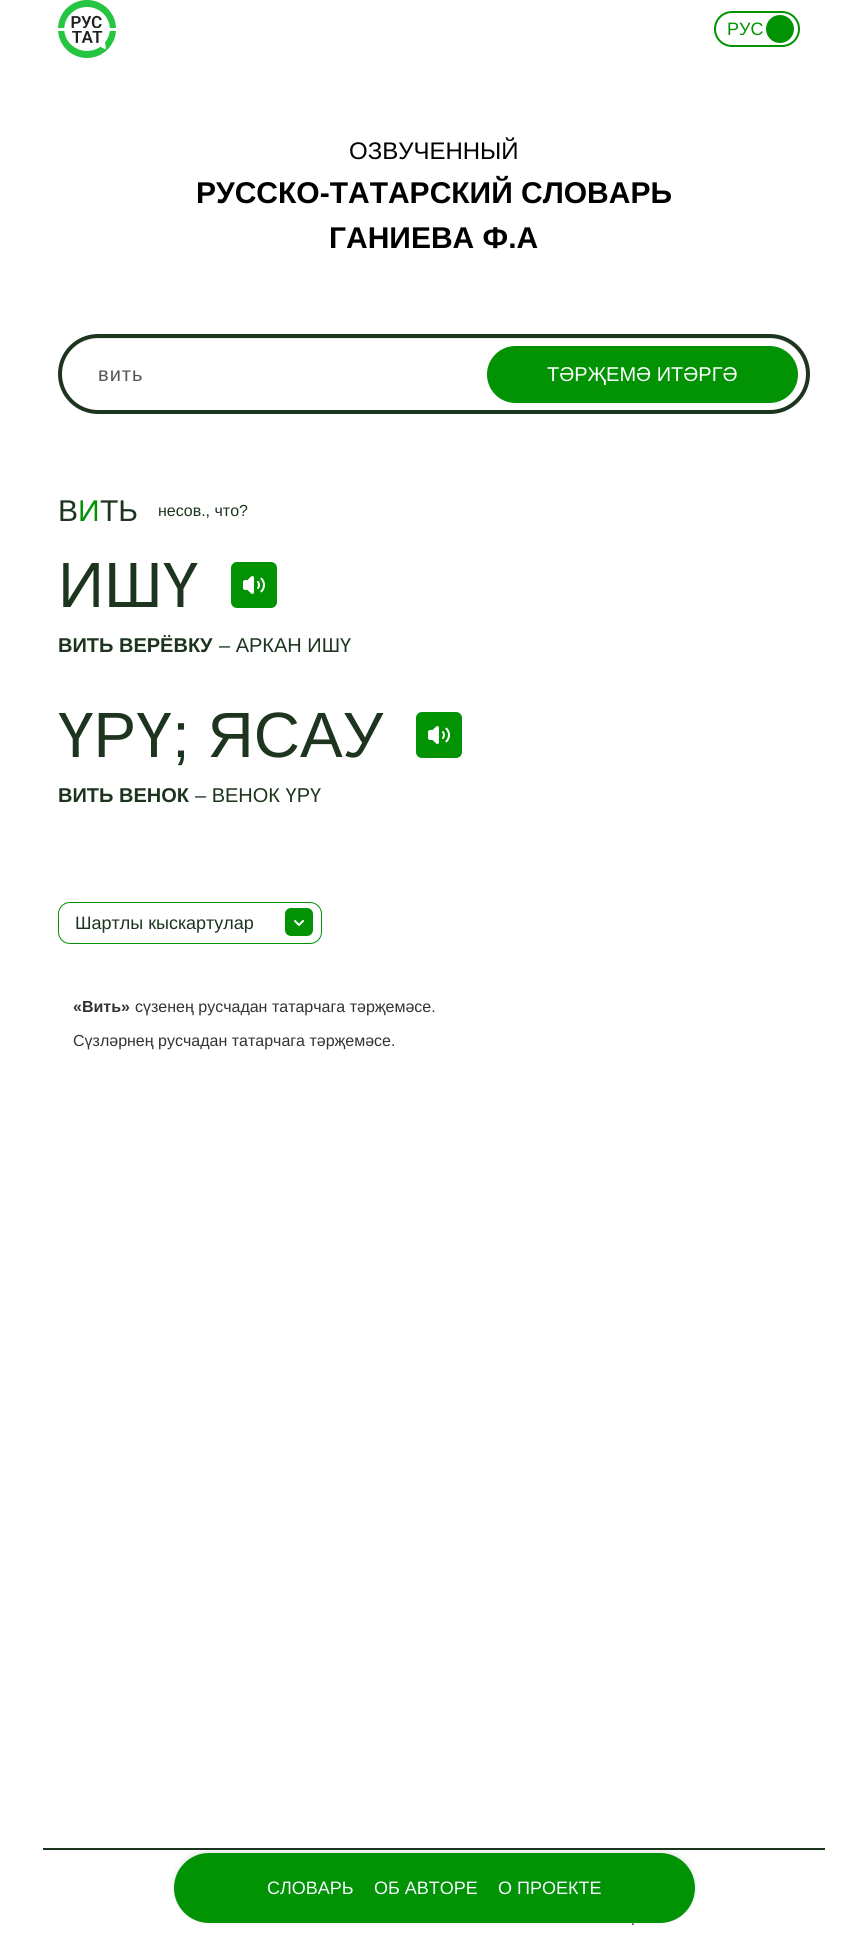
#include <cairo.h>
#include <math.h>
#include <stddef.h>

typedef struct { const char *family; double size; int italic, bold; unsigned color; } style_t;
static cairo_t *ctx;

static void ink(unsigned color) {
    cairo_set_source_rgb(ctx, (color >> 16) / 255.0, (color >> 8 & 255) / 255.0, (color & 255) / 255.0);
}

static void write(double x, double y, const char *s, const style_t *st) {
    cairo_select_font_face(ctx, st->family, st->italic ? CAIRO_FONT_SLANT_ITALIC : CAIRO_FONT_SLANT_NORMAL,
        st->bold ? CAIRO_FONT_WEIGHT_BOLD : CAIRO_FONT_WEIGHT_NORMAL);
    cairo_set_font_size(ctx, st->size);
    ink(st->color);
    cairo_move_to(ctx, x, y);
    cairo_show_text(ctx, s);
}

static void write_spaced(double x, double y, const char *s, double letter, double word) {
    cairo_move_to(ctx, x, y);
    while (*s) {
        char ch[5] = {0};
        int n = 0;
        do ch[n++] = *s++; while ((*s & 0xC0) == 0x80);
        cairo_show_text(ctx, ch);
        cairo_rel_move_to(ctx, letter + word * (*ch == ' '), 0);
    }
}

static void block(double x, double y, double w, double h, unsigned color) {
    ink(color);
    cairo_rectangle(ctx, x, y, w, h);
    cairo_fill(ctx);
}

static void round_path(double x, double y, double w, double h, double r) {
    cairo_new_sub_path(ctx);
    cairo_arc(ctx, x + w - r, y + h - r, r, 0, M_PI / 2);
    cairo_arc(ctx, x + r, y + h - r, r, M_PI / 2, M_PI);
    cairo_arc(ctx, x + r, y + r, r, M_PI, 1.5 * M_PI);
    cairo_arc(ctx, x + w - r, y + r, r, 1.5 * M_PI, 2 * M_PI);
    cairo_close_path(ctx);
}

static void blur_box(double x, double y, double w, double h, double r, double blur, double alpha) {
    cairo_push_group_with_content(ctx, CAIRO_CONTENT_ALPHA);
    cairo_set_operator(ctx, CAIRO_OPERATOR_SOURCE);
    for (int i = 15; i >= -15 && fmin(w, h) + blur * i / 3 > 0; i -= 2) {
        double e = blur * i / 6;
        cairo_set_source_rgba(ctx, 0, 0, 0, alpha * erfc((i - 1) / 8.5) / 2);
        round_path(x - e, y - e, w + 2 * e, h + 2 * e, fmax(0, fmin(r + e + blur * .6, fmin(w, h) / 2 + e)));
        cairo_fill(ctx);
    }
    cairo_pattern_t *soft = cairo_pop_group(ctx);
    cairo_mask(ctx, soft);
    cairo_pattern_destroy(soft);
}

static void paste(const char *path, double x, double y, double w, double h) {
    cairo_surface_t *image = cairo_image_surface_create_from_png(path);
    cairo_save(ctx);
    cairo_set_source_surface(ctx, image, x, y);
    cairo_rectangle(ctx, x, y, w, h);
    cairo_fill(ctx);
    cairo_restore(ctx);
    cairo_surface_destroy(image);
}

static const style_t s1 = {"Liberation Sans", 18, 0, 0, 0x019303};
static const style_t s2 = {"Liberation Sans", 24, 0, 0, 0x000000};
static const style_t s3 = {"Liberation Sans", 30, 0, 1, 0x000000};
static const style_t s4 = {"Liberation Sans", 20, 0, 0, 0xffffff};
static const style_t s5 = {"Liberation Sans", 30, 0, 0, 0x1d351e};
static const style_t s6 = {"Liberation Sans", 30, 0, 0, 0x019303};
static const style_t s7 = {"Liberation Sans", 16, 0, 0, 0x1d351e};
static const style_t s8 = {"Liberation Sans", 64, 0, 0, 0x1d351e};
static const style_t s9 = {"Liberation Sans", 20, 0, 1, 0x1d351e};
static const style_t s10 = {"Liberation Sans", 20, 0, 0, 0x1d351e};
static const style_t s11 = {"Liberation Sans", 18, 0, 0, 0x1d351e};
static const style_t s12 = {"Liberation Sans", 16, 0, 1, 0x333333};
static const style_t s13 = {"Liberation Sans", 16, 0, 0, 0x333333};
static const style_t s14 = {"Liberation Sans", 18, 0, 0, 0xf3f9ff};
static const style_t s15 = {"Liberation Sans", 14, 0, 0, 0x000000};

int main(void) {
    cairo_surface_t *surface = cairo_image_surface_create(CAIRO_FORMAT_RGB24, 868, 1943);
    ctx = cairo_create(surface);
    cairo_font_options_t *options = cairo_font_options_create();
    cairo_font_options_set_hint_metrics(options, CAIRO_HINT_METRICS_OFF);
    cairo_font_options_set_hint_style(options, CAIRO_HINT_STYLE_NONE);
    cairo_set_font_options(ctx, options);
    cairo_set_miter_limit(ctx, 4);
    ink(0xffffff);
    cairo_paint(ctx);
    paste("pic1.png", 58, 0, 58, 58);
    round_path(715, 12, 84, 34, 17);
    ink(0x019303);
    cairo_stroke(ctx);
    write(727, 35, "РУС", &s1);
    cairo_new_path(ctx);
    cairo_arc(ctx, 780, 29, 14, 0, 2 * M_PI);
    cairo_fill(ctx);
    write(349, 159, "ОЗВУЧЕННЫЙ", &s2);
    write(196, 203, "РУССКО-ТАТАРСКИЙ СЛОВАРЬ", &s3);
    write(329, 248, "ГАНИЕВА Ф.А", &s3);
    ink(0xececec);
    cairo_new_path(ctx);
    cairo_move_to(ctx, 98, 339);
    cairo_line_to(ctx, 770, 339);
    cairo_curve_to(ctx, 790, 339, 806, 355, 806, 374);
    cairo_curve_to(ctx, 806, 355, 790, 338, 770, 338);
    cairo_line_to(ctx, 98, 338);
    cairo_curve_to(ctx, 78, 338, 62, 355, 62, 374);
    cairo_curve_to(ctx, 62, 355, 78, 339, 98, 339);
    cairo_close_path(ctx);
    cairo_fill(ctx);
    round_path(60, 336, 748, 76, 38);
    ink(0x1d351e);
    cairo_set_line_width(ctx, 4);
    cairo_stroke(ctx);
    cairo_select_font_face(ctx, "Liberation Sans", CAIRO_FONT_SLANT_NORMAL, CAIRO_FONT_WEIGHT_NORMAL);
    cairo_set_font_size(ctx, 20);
    ink(0x555555);
    write_spaced(98, 381, "вить", 1, 0);
    ink(0x019303);
    round_path(487, 346, 311, 57, 28.5);
    cairo_fill(ctx);
    write(547, 381, "ТӘРҖЕМӘ ИТӘРГӘ", &s4);
    write(58, 521, "В", &s5);
    write(78, 521, "И", &s6);
    write(100, 521, "ТЬ", &s5);
    write(158, 516, "несов., что?", &s7);
    write(58, 607, "ИШҮ", &s8);
    ink(0x019303);
    round_path(231, 562, 46, 46, 6);
    cairo_fill(ctx);
    paste("pic2.png", 243, 576, 22, 18);
    write(58, 652, "ВИТЬ ВЕРЁВКУ", &s9);
    write(219, 652, "– АРКАН ИШҮ", &s10);
    write(58, 757, "ҮРҮ; ЯСАУ", &s8);
    ink(0x019303);
    round_path(416, 712, 46, 46, 6);
    cairo_fill(ctx);
    paste("pic2.png", 428, 726, 22, 18);
    write(58, 802, "ВИТЬ ВЕНОК", &s9);
    write(195, 802, "– ВЕНОК ҮРҮ", &s10);
    round_path(58.5, 902.5, 263, 41, 11.5);
    ink(0x019303);
    cairo_set_line_width(ctx, 1);
    cairo_stroke(ctx);
    write(75, 929, "Шартлы кыскартулар", &s11);
    ink(0x019303);
    round_path(285, 908, 28, 28, 6);
    cairo_fill(ctx);
    cairo_new_path(ctx);
    cairo_move_to(ctx, 295, 921);
    cairo_line_to(ctx, 299, 925);
    cairo_line_to(ctx, 303, 921);
    ink(0xf7fff7);
    cairo_set_line_width(ctx, 2);
    cairo_set_line_cap(ctx, CAIRO_LINE_CAP_ROUND);
    cairo_set_line_join(ctx, CAIRO_LINE_JOIN_ROUND);
    cairo_stroke(ctx);
    write(73, 1012, "«Вить»", &s12);
    write(135, 1012, "сүзенең русчадан татарчага тәрҗемәсе.", &s13);
    write(73, 1046, "Сүзләрнең русчадан татарчага тәрҗемәсе.", &s13);
    block(43, 1848, 782, 2, 0x1d351e);
    ink(0x000000);
    blur_box(174, 1851, 521, 70, 35, 2.5, 0.1);
    ink(0x019303);
    round_path(174, 1853, 521, 70, 35);
    cairo_fill(ctx);
    write(267, 1894, "СЛОВАРЬ", &s14);
    write(374, 1894, "ОБ АВТОРЕ", &s14);
    write(498, 1894, "О ПРОЕКТЕ", &s14);
    write(631, 1925, ".", &s15);
    cairo_surface_write_to_png(surface, "screenshot.png");
    cairo_font_options_destroy(options);
    cairo_destroy(ctx);
    cairo_surface_destroy(surface);
    return 0;
}
